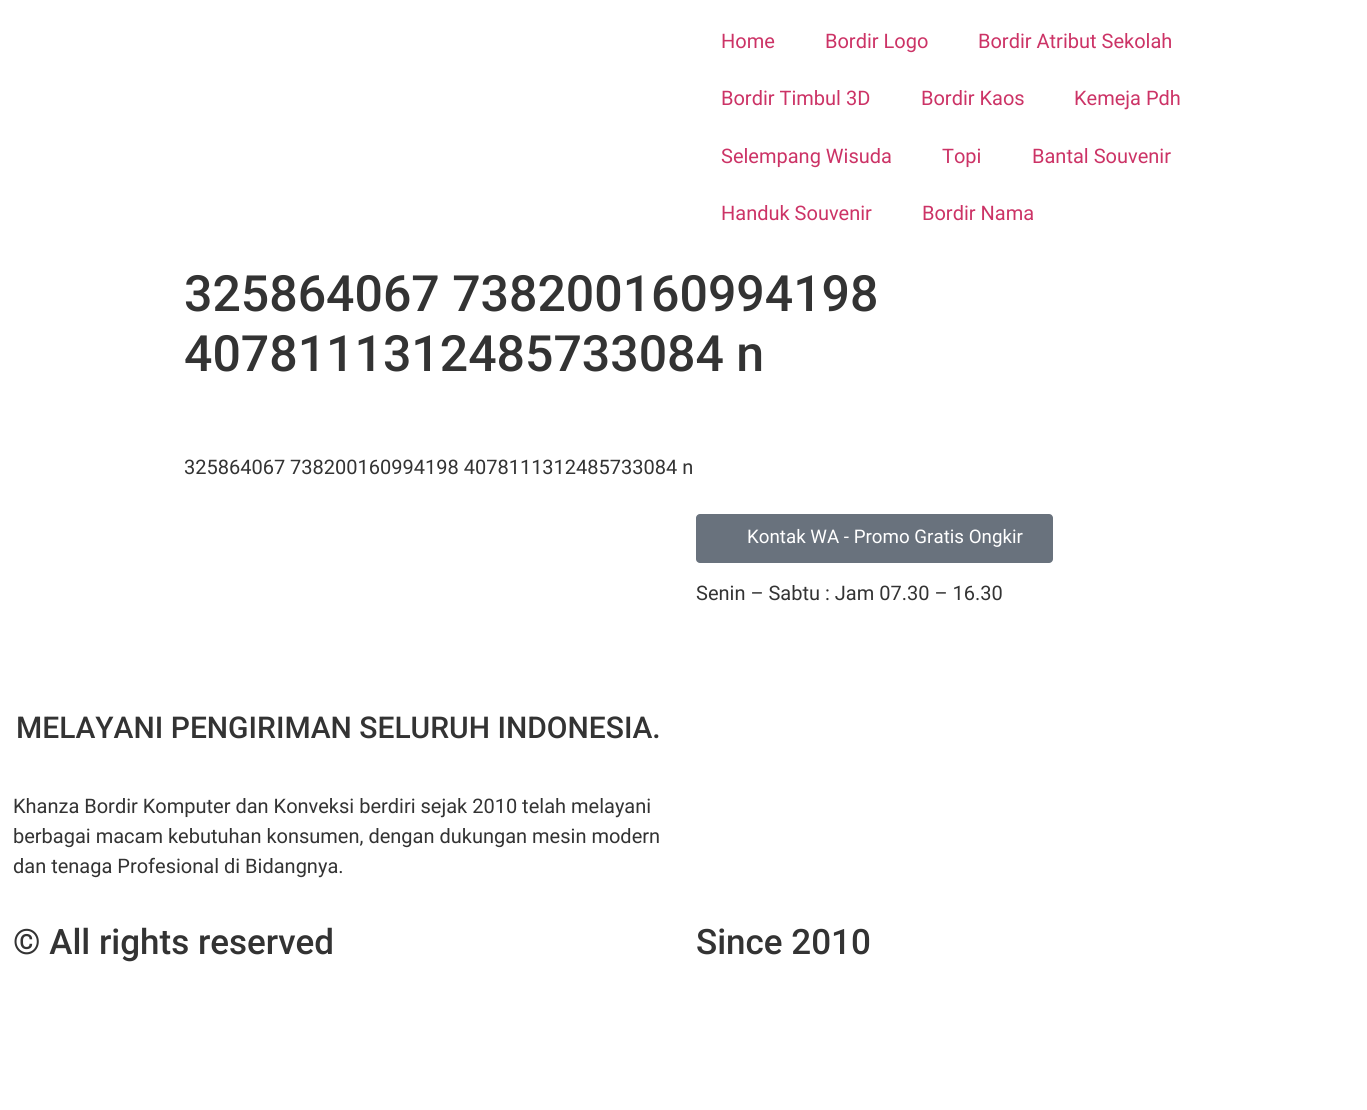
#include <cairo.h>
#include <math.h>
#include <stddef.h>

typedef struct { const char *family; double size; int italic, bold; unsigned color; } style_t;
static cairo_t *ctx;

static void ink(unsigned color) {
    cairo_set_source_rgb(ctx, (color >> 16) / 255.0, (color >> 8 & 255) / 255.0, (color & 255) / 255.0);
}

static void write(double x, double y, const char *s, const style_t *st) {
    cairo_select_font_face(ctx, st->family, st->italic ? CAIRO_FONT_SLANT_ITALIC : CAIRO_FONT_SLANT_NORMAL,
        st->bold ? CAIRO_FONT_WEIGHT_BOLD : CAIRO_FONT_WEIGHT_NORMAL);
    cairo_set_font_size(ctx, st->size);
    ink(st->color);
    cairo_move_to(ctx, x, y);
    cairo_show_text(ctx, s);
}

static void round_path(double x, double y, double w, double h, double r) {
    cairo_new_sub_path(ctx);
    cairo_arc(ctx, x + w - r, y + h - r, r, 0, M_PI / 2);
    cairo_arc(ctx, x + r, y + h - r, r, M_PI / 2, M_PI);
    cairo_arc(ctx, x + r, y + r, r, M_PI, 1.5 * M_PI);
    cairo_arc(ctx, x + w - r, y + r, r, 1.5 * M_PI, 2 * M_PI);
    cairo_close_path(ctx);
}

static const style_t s1 = {"Roboto", 20, 0, 0, 0xcc3366};
static const style_t s2 = {"Roboto Medium", 50, 0, 0, 0x333333};
static const style_t s3 = {"Roboto", 20, 0, 0, 0x333333};
static const style_t s4 = {"Roboto", 18.75, 0, 0, 0xffffff};
static const style_t s5 = {"Roboto Medium", 30, 0, 0, 0x333333};
static const style_t s6 = {"Roboto Medium", 35, 0, 0, 0x333333};

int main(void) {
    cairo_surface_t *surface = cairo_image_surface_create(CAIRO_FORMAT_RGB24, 1367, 1110);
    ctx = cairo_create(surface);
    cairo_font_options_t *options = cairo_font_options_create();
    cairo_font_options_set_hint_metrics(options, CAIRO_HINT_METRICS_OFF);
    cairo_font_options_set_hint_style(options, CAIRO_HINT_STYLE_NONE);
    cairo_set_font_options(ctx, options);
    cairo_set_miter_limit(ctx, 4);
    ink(0xffffff);
    cairo_paint(ctx);
    write(721, 48, "Home", &s1);
    write(825, 48, "Bordir Logo", &s1);
    write(978, 48, "Bordir Atribut Sekolah", &s1);
    write(721, 105, "Bordir Timbul 3D", &s1);
    write(921, 105, "Bordir Kaos", &s1);
    write(1074, 105, "Kemeja Pdh", &s1);
    write(721, 163, "Selempang Wisuda", &s1);
    write(942, 163, "Topi", &s1);
    write(1032, 163, "Bantal Souvenir", &s1);
    write(721, 220, "Handuk Souvenir", &s1);
    write(922, 220, "Bordir Nama", &s1);
    write(184, 311, "325864067 738200160994198", &s2);
    write(184, 371, "4078111312485733084 n", &s2);
    write(184, 474, "325864067 738200160994198 4078111312485733084 n", &s3);
    ink(0x69727d);
    round_path(696, 514, 357, 49, 4);
    cairo_fill(ctx);
    write(747, 543, "Kontak WA - Promo Gratis Ongkir", &s4);
    write(696, 600, "Senin – Sabtu : Jam 07.30 – 16.30", &s3);
    write(16, 738, "MELAYANI PENGIRIMAN SELURUH INDONESIA.", &s5);
    write(13, 813, "Khanza Bordir Komputer dan Konveksi berdiri sejak 2010 telah melayani", &s3);
    write(13, 843, "berbagai macam kebutuhan konsumen, dengan dukungan mesin modern", &s3);
    write(13, 873, "dan tenaga Profesional di Bidangnya.", &s3);
    write(13, 954, "© All rights reserved", &s6);
    write(696, 954, "Since 2010", &s6);
    cairo_surface_write_to_png(surface, "screenshot.png");
    cairo_font_options_destroy(options);
    cairo_destroy(ctx);
    cairo_surface_destroy(surface);
    return 0;
}
